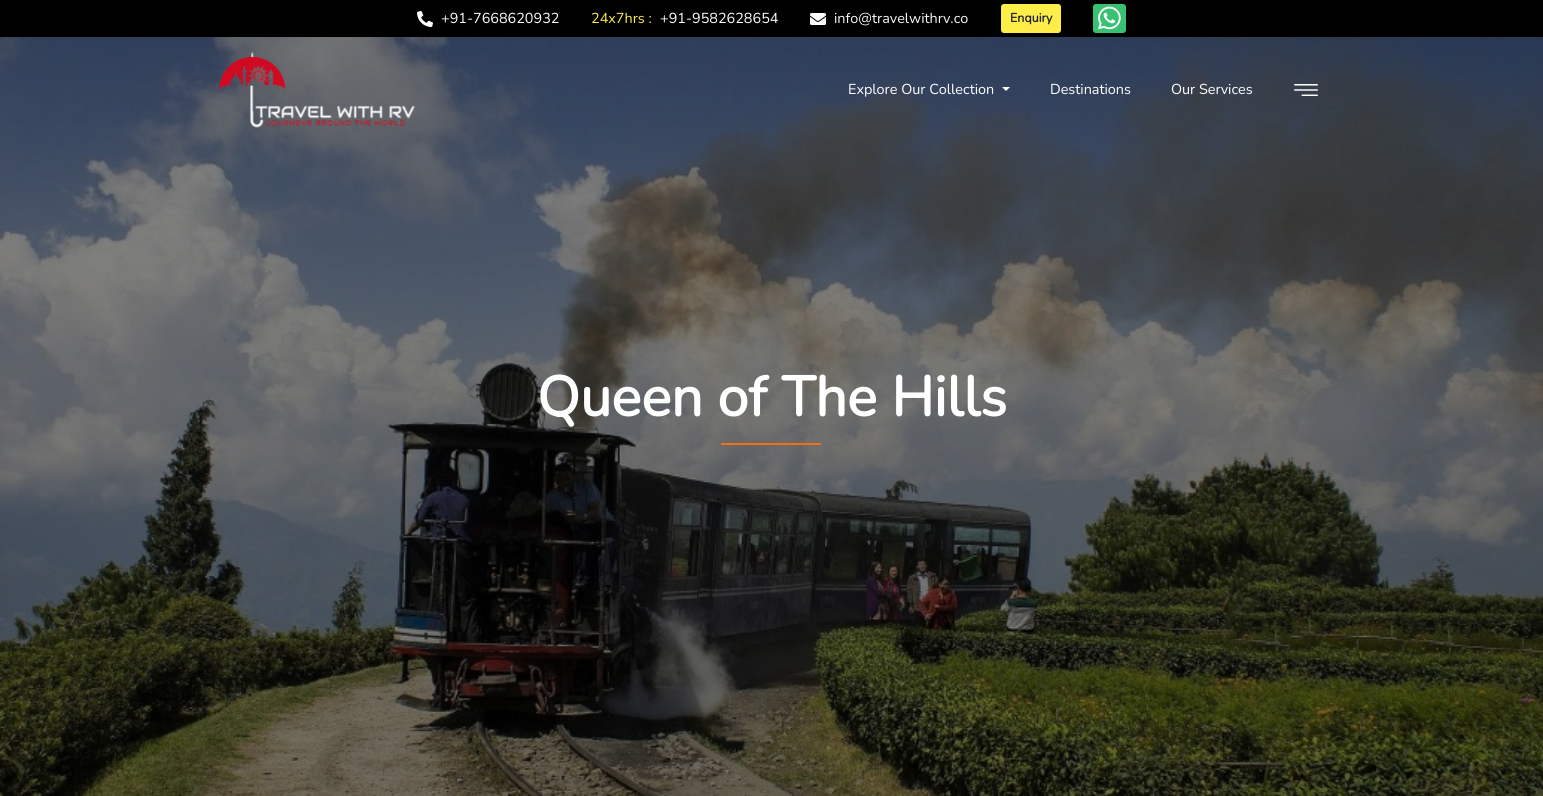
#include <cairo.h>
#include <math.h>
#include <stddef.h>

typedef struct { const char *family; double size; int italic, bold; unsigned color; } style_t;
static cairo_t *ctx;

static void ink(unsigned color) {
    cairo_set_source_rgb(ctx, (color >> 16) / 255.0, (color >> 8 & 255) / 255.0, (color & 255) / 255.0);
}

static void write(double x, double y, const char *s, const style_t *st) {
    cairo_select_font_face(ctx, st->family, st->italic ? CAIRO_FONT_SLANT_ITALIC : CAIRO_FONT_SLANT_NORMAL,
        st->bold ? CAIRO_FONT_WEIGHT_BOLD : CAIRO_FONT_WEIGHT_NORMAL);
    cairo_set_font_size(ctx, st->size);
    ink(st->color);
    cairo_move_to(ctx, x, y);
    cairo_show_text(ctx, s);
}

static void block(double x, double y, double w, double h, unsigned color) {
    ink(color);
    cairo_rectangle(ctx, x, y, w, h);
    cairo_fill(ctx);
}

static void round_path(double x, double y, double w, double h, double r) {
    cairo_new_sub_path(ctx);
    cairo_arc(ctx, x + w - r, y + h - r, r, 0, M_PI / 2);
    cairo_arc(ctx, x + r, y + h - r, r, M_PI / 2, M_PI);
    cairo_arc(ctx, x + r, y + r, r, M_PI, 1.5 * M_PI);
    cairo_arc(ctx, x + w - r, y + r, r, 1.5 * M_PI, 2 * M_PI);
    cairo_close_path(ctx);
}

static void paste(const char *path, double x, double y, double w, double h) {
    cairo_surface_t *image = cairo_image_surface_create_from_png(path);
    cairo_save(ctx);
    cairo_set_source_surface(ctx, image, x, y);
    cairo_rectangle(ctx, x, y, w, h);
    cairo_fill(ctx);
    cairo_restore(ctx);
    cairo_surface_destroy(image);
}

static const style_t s1 = {"Nunito ExtraLight", 14.4, 0, 0, 0xffffff};
static const style_t s2 = {"Nunito ExtraLight", 14.4, 0, 0, 0xffed4a};
static const style_t s3 = {"Nunito ExtraLight", 14.4, 0, 0, 0xf8f9fa};
static const style_t s4 = {"Nunito", 12.5, 0, 1, 0x212529};
static const style_t s5 = {"Nunito", 56, 0, 1, 0xffffff};

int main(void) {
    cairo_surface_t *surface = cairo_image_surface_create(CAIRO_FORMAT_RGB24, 1543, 796);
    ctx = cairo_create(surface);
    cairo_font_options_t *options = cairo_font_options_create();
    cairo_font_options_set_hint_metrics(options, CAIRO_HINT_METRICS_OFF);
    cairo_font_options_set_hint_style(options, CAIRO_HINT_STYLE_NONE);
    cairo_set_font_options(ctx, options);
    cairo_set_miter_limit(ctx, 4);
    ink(0xffffff);
    cairo_paint(ctx);
    block(0, 0, 1543, 37, 0x000000);
    paste("pic1.png", 417, 11, 16, 16);
    write(441, 23, "+91-7668620932", &s1);
    write(591, 23, "24x7hrs :", &s2);
    write(660, 23, "+91-9582628654", &s1);
    paste("pic2.png", 810, 13, 16, 12);
    write(834, 23, "info@travelwithrv.co", &s3);
    ink(0xffed4a);
    round_path(1001.5, 4.5, 59, 28, 2.5);
    cairo_fill_preserve(ctx);
    cairo_set_line_width(ctx, 1);
    cairo_stroke(ctx);
    write(1010, 22, "Enquiry", &s4);
    ink(0x38c172);
    round_path(1093.5, 4.5, 32, 28, 2.5);
    cairo_fill_preserve(ctx);
    cairo_stroke(ctx);
    paste("pic3.png", 1098, 6, 23, 24);
    paste("pic6.png", 0, 37, 1543, 759);
    paste("pic4.png", 218, 52, 197, 76);
    write(848, 94, "Explore Our Collection", &s1);
    cairo_new_path(ctx);
    cairo_move_to(ctx, 1002, 87);
    cairo_line_to(ctx, 1010, 87);
    cairo_line_to(ctx, 1006, 91);
    cairo_close_path(ctx);
    cairo_fill(ctx);
    write(1050, 94, "Destinations", &s1);
    write(1171, 94, "Our Services", &s1);
    paste("pic5.png", 1294, 84, 24, 12);
    write(537, 416, "Queen of The Hills", &s5);
    block(721, 443, 100, 2, 0xf17011);
    cairo_surface_write_to_png(surface, "screenshot.png");
    cairo_font_options_destroy(options);
    cairo_destroy(ctx);
    cairo_surface_destroy(surface);
    return 0;
}
